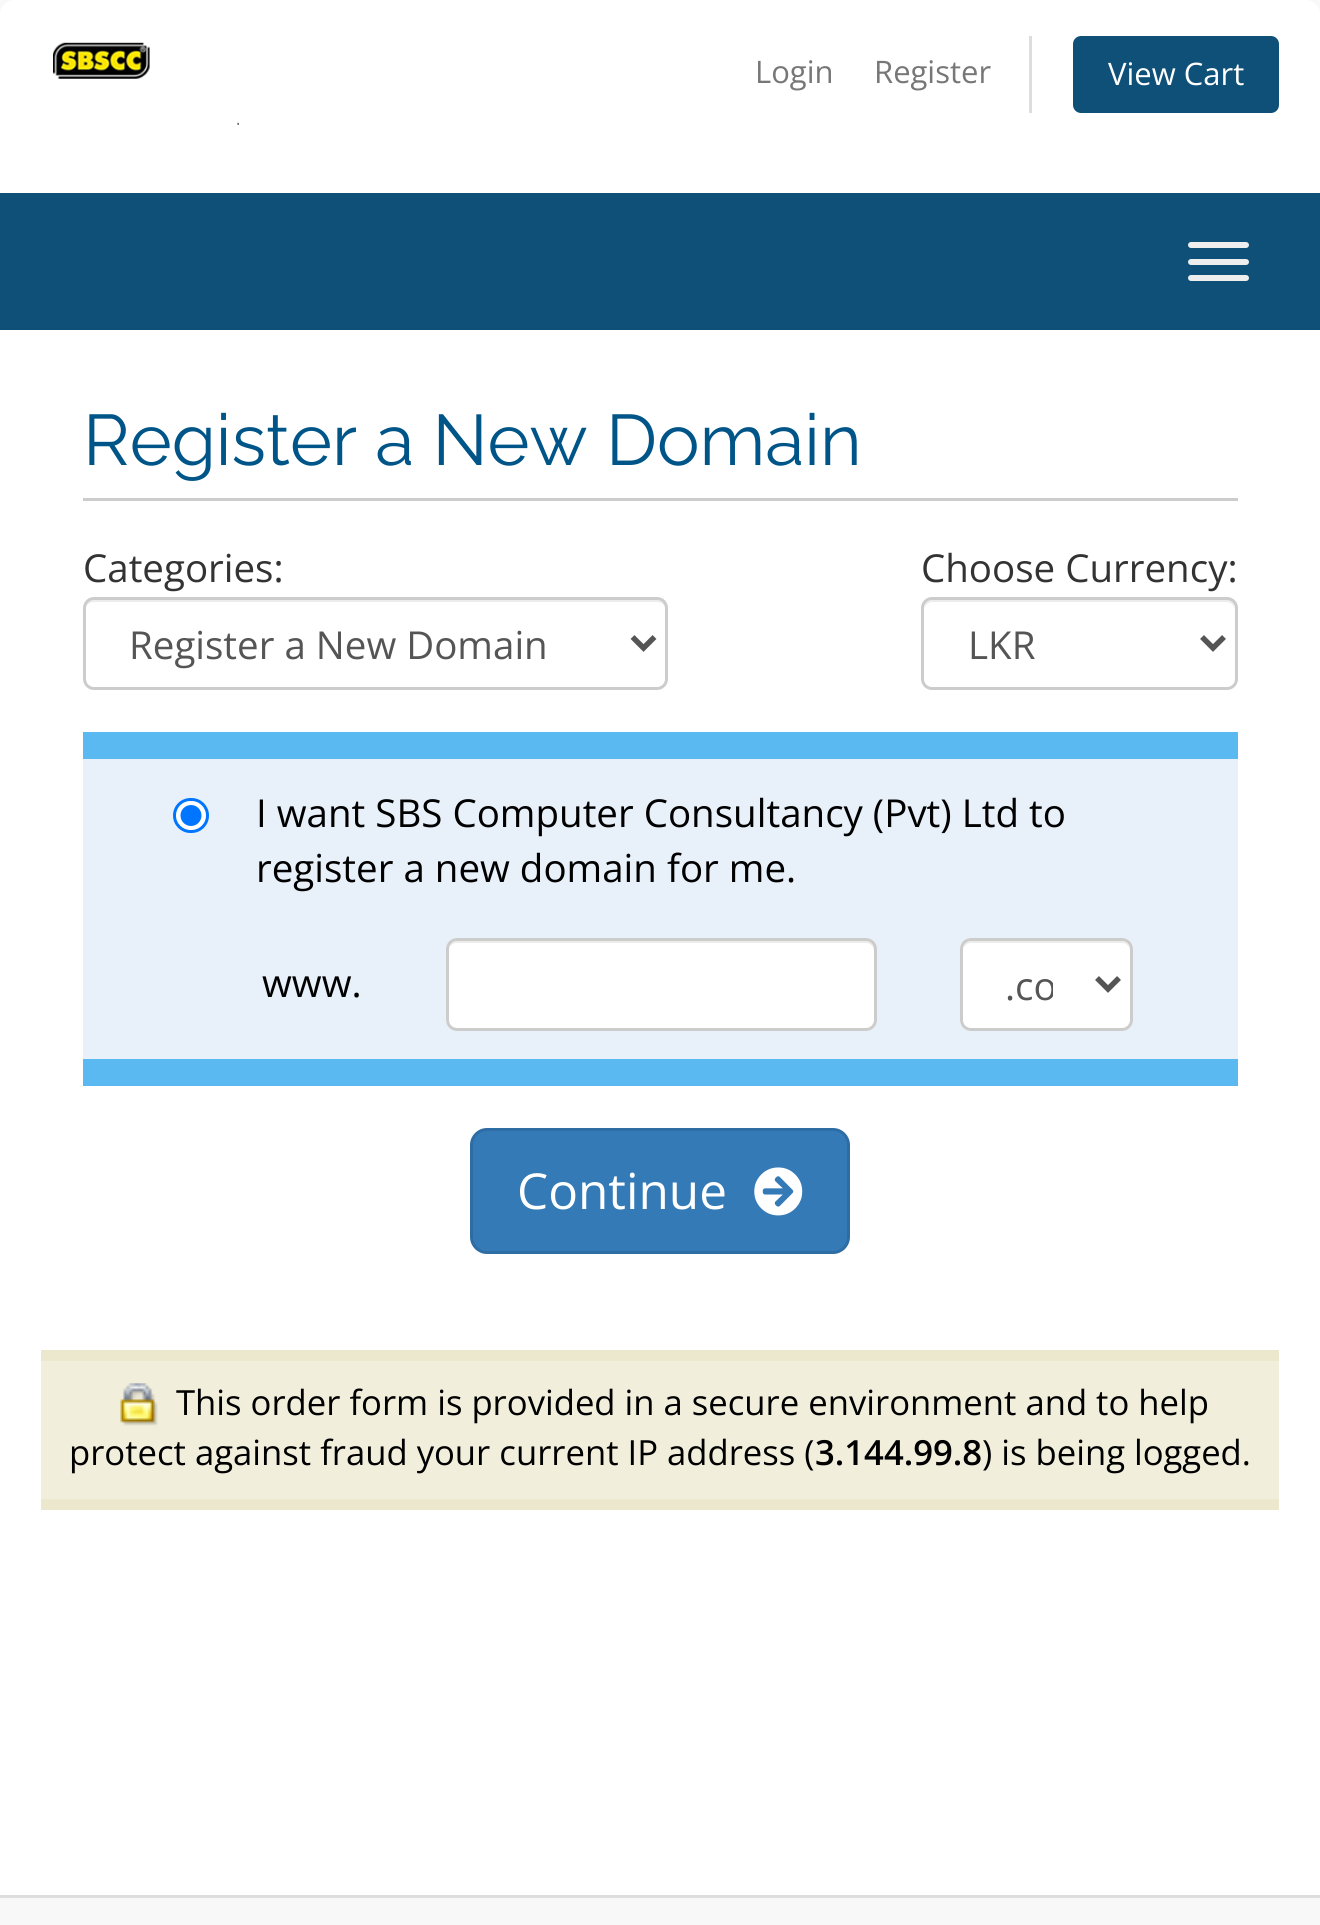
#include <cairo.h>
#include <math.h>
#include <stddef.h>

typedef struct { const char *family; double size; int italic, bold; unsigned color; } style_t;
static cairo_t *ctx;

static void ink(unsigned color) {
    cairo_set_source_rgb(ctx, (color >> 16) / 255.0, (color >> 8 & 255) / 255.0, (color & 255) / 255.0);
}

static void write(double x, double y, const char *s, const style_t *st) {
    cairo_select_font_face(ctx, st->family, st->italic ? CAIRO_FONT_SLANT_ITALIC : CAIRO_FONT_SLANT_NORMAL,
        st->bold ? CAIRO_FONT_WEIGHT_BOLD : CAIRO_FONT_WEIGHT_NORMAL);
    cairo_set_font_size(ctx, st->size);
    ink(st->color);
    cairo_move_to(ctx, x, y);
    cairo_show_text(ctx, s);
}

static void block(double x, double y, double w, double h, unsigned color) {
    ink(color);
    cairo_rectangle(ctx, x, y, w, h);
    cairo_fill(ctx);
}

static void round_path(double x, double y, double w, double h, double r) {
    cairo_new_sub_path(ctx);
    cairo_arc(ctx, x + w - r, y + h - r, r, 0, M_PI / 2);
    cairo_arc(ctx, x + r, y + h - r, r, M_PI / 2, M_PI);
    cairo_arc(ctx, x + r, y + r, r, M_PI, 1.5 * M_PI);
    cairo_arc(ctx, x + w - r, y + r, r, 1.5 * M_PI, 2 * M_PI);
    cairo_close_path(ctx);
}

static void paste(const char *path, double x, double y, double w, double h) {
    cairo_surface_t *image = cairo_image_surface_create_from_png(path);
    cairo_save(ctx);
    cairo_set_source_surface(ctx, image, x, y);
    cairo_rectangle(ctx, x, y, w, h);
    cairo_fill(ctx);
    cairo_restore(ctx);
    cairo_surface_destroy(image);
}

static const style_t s1 = {"Open Sans", 31, 0, 0, 0x777777};
static const style_t s2 = {"Open Sans", 31, 0, 0, 0xffffff};
static const style_t s3 = {"Raleway", 71.5, 0, 0, 0x005588};
static const style_t s4 = {"Open Sans", 38.5, 0, 0, 0x333333};
static const style_t s5 = {"Open Sans", 38.5, 0, 0, 0x555555};
static const style_t s6 = {"Open Sans", 38.5, 0, 0, 0x000000};
static const style_t s7 = {"Open Sans", 49.5, 0, 0, 0xffffff};
static const style_t s8 = {"Open Sans", 34.65, 0, 0, 0x000000};
static const style_t s9 = {"Open Sans SemiBold", 34.65, 0, 0, 0x000000};

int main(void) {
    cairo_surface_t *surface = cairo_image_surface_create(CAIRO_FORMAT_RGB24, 1320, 1925);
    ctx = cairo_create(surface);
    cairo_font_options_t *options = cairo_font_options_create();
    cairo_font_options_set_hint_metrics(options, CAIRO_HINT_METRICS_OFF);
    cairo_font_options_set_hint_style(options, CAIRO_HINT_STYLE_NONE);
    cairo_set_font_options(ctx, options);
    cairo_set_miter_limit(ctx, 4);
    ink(0xf8f8f8);
    cairo_paint(ctx);
    ink(0xffffff);
    cairo_new_path(ctx);
    cairo_move_to(ctx, 14, 0);
    cairo_line_to(ctx, 1306, 0);
    cairo_curve_to(ctx, 1313.5, 0, 1320, 6.5, 1320, 14);
    cairo_line_to(ctx, 1320, 193);
    cairo_line_to(ctx, 0, 193);
    cairo_line_to(ctx, 0, 14);
    cairo_curve_to(ctx, 0, 6.5, 6.5, 0, 14, 0);
    cairo_close_path(ctx);
    cairo_fill(ctx);
    paste("pic1.png", 53, 42, 186, 83);
    write(755, 83, "Login", &s1);
    write(874, 83, "Register", &s1);
    block(1029, 36, 3, 77, 0xdddddd);
    ink(0x0e5077);
    round_path(1073, 36, 206, 77, 8);
    cairo_fill(ctx);
    write(1108, 85, "View Cart", &s2);
    block(0, 193, 1320, 137, 0x0e5077);
    ink(0xeeeeee);
    round_path(1188, 242, 61, 6, 3);
    cairo_fill(ctx);
    round_path(1188, 259, 61, 6, 3);
    cairo_fill(ctx);
    round_path(1188, 275, 61, 6, 3);
    cairo_fill(ctx);
    block(0, 330, 1320, 1565, 0xffffff);
    block(83, 498, 1155, 3, 0xcccccc);
    write(83, 465, "Register a New Domain", &s3);
    write(83, 582, "Categories:", &s4);
    ink(0xececec);
    cairo_new_path(ctx);
    cairo_move_to(ctx, 94, 602);
    cairo_line_to(ctx, 657, 602);
    cairo_curve_to(ctx, 662, 602, 666, 606, 666, 610);
    cairo_curve_to(ctx, 666, 605, 664, 600, 658, 600);
    cairo_line_to(ctx, 93, 600);
    cairo_curve_to(ctx, 87, 600, 85, 605, 85, 610);
    cairo_curve_to(ctx, 85, 606, 89, 602, 94, 602);
    cairo_close_path(ctx);
    cairo_fill(ctx);
    round_path(84.5, 598.5, 582, 90, 9.5);
    ink(0xcccccc);
    cairo_set_line_width(ctx, 3);
    cairo_stroke(ctx);
    cairo_new_path(ctx);
    cairo_move_to(ctx, 632.5, 637);
    cairo_line_to(ctx, 643.5, 648);
    cairo_line_to(ctx, 654.5, 637);
    ink(0x555555);
    cairo_set_line_width(ctx, 5.5);
    cairo_stroke(ctx);
    write(129, 659, "Register a New Domain", &s5);
    write(921, 582, "Choose Currency:", &s4);
    ink(0xececec);
    cairo_new_path(ctx);
    cairo_move_to(ctx, 932, 602);
    cairo_line_to(ctx, 1226, 602);
    cairo_curve_to(ctx, 1231, 602, 1235, 606, 1235, 610);
    cairo_curve_to(ctx, 1235, 606, 1234, 601, 1229, 600);
    cairo_line_to(ctx, 930, 600);
    cairo_curve_to(ctx, 925, 601, 924, 606, 924, 610);
    cairo_curve_to(ctx, 924, 606, 928, 602, 932, 602);
    cairo_close_path(ctx);
    cairo_fill(ctx);
    round_path(922.5, 598.5, 314, 90, 9.5);
    ink(0xcccccc);
    cairo_set_line_width(ctx, 3);
    cairo_stroke(ctx);
    cairo_new_path(ctx);
    cairo_move_to(ctx, 1202, 637);
    cairo_line_to(ctx, 1213, 648);
    cairo_line_to(ctx, 1224, 637);
    ink(0x555555);
    cairo_set_line_width(ctx, 5.5);
    cairo_stroke(ctx);
    write(968, 659, "LKR", &s5);
    block(83, 732, 1155, 27, 0x5ab9f1);
    block(83, 1059, 1155, 27, 0x5ab9f1);
    block(83, 759, 1155, 300, 0xe8f0f9);
    ink(0xffffff);
    round_path(174.5, 799.5, 33, 32, 16);
    cairo_fill_preserve(ctx);
    ink(0x0075ff);
    cairo_set_line_width(ctx, 3);
    cairo_stroke(ctx);
    cairo_arc(ctx, 191, 815.5, 10.5, 0, 2 * M_PI);
    cairo_fill(ctx);
    write(256, 827, "I want SBS Computer Consultancy (Pvt) Ltd to", &s6);
    write(256, 882, "register a new domain for me.", &s6);
    write(262, 997, "www.", &s6);
    ink(0xffffff);
    round_path(446, 938, 431, 93, 11);
    cairo_fill(ctx);
    ink(0xececec);
    cairo_new_path(ctx);
    cairo_move_to(ctx, 456, 943);
    cairo_line_to(ctx, 866, 943);
    cairo_curve_to(ctx, 871, 943, 874, 947, 874, 952);
    cairo_line_to(ctx, 874, 1025);
    cairo_curve_to(ctx, 875, 1024, 875, 1023, 875, 1021);
    cairo_line_to(ctx, 875, 949);
    cairo_curve_to(ctx, 875, 945, 871, 941, 867, 941);
    cairo_line_to(ctx, 456, 941);
    cairo_curve_to(ctx, 452, 941, 448, 945, 448, 949);
    cairo_line_to(ctx, 448, 952);
    cairo_curve_to(ctx, 448, 947, 452, 943, 456, 943);
    cairo_close_path(ctx);
    cairo_fill(ctx);
    round_path(447.5, 939.5, 428, 90, 9.5);
    ink(0xcccccc);
    cairo_stroke(ctx);
    ink(0xffffff);
    round_path(960, 938, 173, 93, 11);
    cairo_fill(ctx);
    ink(0xececec);
    cairo_new_path(ctx);
    cairo_move_to(ctx, 971, 943);
    cairo_line_to(ctx, 1122, 943);
    cairo_curve_to(ctx, 1127, 943, 1130, 947, 1130, 952);
    cairo_line_to(ctx, 1130, 949);
    cairo_curve_to(ctx, 1130, 945, 1126, 941, 1122, 941);
    cairo_line_to(ctx, 971, 941);
    cairo_curve_to(ctx, 967, 941, 964, 944, 963, 948);
    cairo_curve_to(ctx, 965, 945, 968, 943, 971, 943);
    cairo_close_path(ctx);
    cairo_fill(ctx);
    round_path(961.5, 939.5, 170, 90, 9.5);
    ink(0xcccccc);
    cairo_stroke(ctx);
    cairo_new_path(ctx);
    cairo_move_to(ctx, 1097, 978);
    cairo_line_to(ctx, 1108, 989);
    cairo_line_to(ctx, 1119, 978);
    ink(0x555555);
    cairo_set_line_width(ctx, 5.5);
    cairo_stroke(ctx);
    cairo_save(ctx);
    cairo_rectangle(ctx, 1007, 957, 46, 58);
    cairo_clip(ctx);
    write(1005, 1000, ".co", &s5);
    cairo_restore(ctx);
    ink(0x337ab7);
    round_path(471.5, 1129.5, 377, 123, 15.5);
    cairo_fill_preserve(ctx);
    ink(0x2e6da4);
    cairo_set_line_width(ctx, 3);
    cairo_stroke(ctx);
    write(517, 1209, "Continue", &s7);
    paste("pic2.png", 754, 1167, 49, 49);
    block(41, 1361, 1238, 138, 0xf1efdc);
    block(41, 1350, 1238, 11, 0xebe8cd);
    block(41, 1499, 1238, 11, 0xebe8cd);
    paste("pic3.png", 120, 1383, 38, 43);
    write(176, 1415, "This order form is provided in a secure environment and to help", &s8);
    write(69, 1465, "protect against fraud your current IP address (", &s8);
    write(815, 1465, "3.144.99.8", &s9);
    write(982, 1465, ") is being logged.", &s8);
    block(0, 1895, 1320, 3, 0xdddddd);
    cairo_surface_write_to_png(surface, "screenshot.png");
    cairo_font_options_destroy(options);
    cairo_destroy(ctx);
    cairo_surface_destroy(surface);
    return 0;
}
